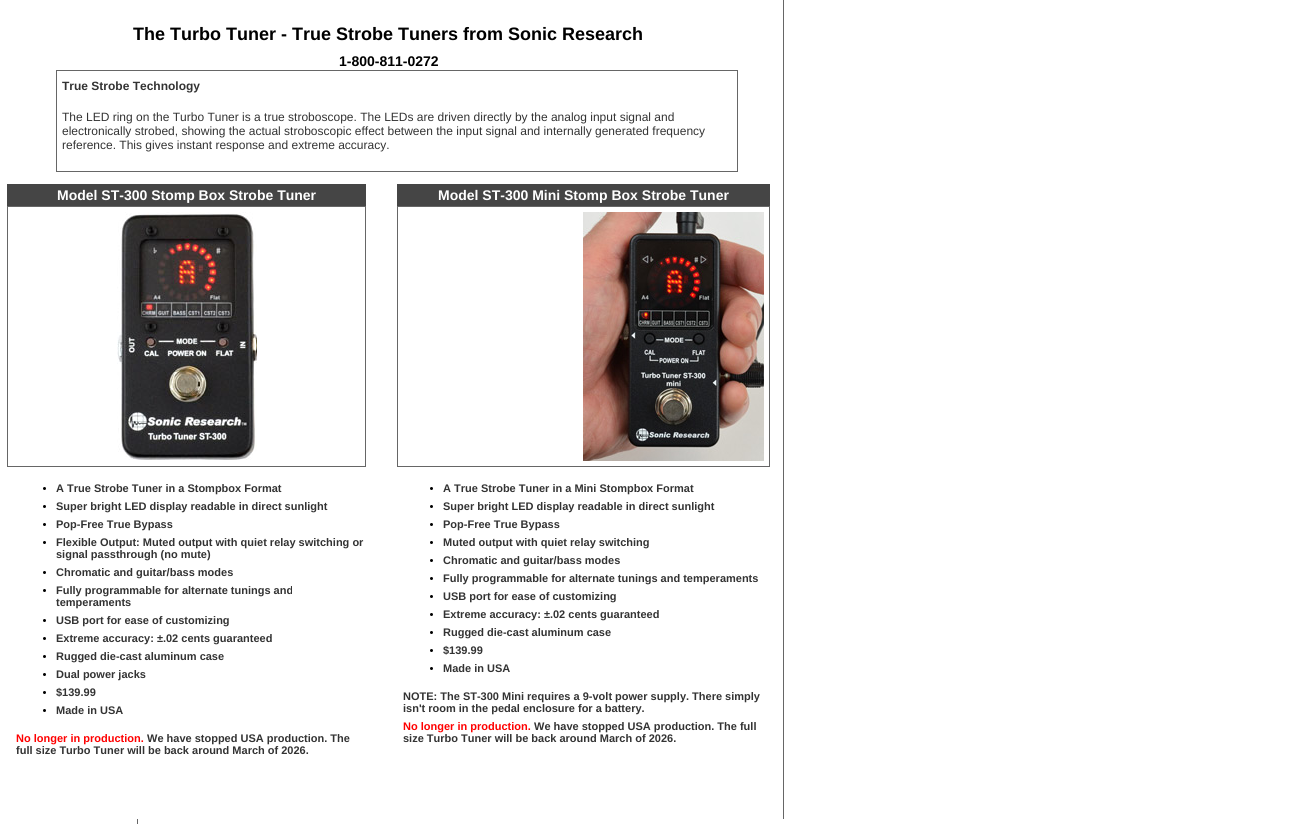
#include <cairo.h>
#include <math.h>
#include <stddef.h>

typedef struct { const char *family; double size; int italic, bold; unsigned color; } style_t;
static cairo_t *ctx;

static void ink(unsigned color) {
    cairo_set_source_rgb(ctx, (color >> 16) / 255.0, (color >> 8 & 255) / 255.0, (color & 255) / 255.0);
}

static void write(double x, double y, const char *s, const style_t *st) {
    cairo_select_font_face(ctx, st->family, st->italic ? CAIRO_FONT_SLANT_ITALIC : CAIRO_FONT_SLANT_NORMAL,
        st->bold ? CAIRO_FONT_WEIGHT_BOLD : CAIRO_FONT_WEIGHT_NORMAL);
    cairo_set_font_size(ctx, st->size);
    ink(st->color);
    cairo_move_to(ctx, x, y);
    cairo_show_text(ctx, s);
}

static void block(double x, double y, double w, double h, unsigned color) {
    ink(color);
    cairo_rectangle(ctx, x, y, w, h);
    cairo_fill(ctx);
}

static void paste(const char *path, double x, double y, double w, double h) {
    cairo_surface_t *image = cairo_image_surface_create_from_png(path);
    cairo_save(ctx);
    cairo_set_source_surface(ctx, image, x, y);
    cairo_rectangle(ctx, x, y, w, h);
    cairo_fill(ctx);
    cairo_restore(ctx);
    cairo_surface_destroy(image);
}

static const style_t s1 = {"Liberation Sans", 18, 0, 1, 0x000000};
static const style_t s2 = {"Liberation Sans", 14, 0, 1, 0x000000};
static const style_t s3 = {"Liberation Sans", 12, 0, 1, 0x333333};
static const style_t s4 = {"Liberation Sans", 12, 0, 0, 0x333333};
static const style_t s5 = {"Liberation Sans", 14, 0, 1, 0xffffff};
static const style_t s6 = {"Liberation Sans", 11, 0, 1, 0x333333};
static const style_t s7 = {"Liberation Sans", 11, 0, 1, 0xff0000};

int main(void) {
    cairo_surface_t *surface = cairo_image_surface_create(CAIRO_FORMAT_RGB24, 1305, 824);
    ctx = cairo_create(surface);
    cairo_font_options_t *options = cairo_font_options_create();
    cairo_font_options_set_hint_metrics(options, CAIRO_HINT_METRICS_OFF);
    cairo_font_options_set_hint_style(options, CAIRO_HINT_STYLE_NONE);
    cairo_set_font_options(ctx, options);
    cairo_set_miter_limit(ctx, 4);
    ink(0xffffff);
    cairo_paint(ctx);
    block(783, 0, 1, 819, 0x666666);
    write(133, 40, "The Turbo Tuner - True Strobe Tuners from Sonic Research", &s1);
    write(339, 66, "1-800-811-0272", &s2);
    cairo_rectangle(ctx, 56.5, 70.5, 681, 101);
    ink(0x666666);
    cairo_set_line_width(ctx, 1);
    cairo_stroke(ctx);
    write(62, 90, "True Strobe Technology", &s3);
    write(62, 121, "The LED ring on the Turbo Tuner is a true stroboscope. The LEDs are driven directly by the analog input signal and", &s4);
    write(62, 135, "electronically strobed, showing the actual stroboscopic effect between the input signal and internally generated frequency", &s4);
    write(62, 149, "reference. This gives instant response and extreme accuracy.", &s4);
    block(7, 184, 359, 22, 0x454545);
    write(57, 200, "Model ST-300 Stomp Box Strobe Tuner", &s5);
    cairo_rectangle(ctx, 7.5, 206.5, 358, 260);
    ink(0x666666);
    cairo_stroke(ctx);
    paste("pic1.png", 117, 212, 140, 248);
    block(397, 184, 373, 22, 0x454545);
    write(438, 200, "Model ST-300 Mini Stomp Box Strobe Tuner", &s5);
    cairo_rectangle(ctx, 397.5, 206.5, 372, 260);
    ink(0x666666);
    cairo_stroke(ctx);
    paste("pic2.png", 583, 212, 181, 249);
    ink(0x000000);
    cairo_arc(ctx, 44.5, 488.5, 1.5, 0, 2 * M_PI);
    cairo_fill(ctx);
    write(56, 492, "A True Strobe Tuner in a Stompbox Format", &s6);
    ink(0x000000);
    cairo_new_path(ctx);
    cairo_arc(ctx, 44.5, 506.5, 1.5, 0, 2 * M_PI);
    cairo_fill(ctx);
    write(56, 510, "Super bright LED display readable in direct sunlight", &s6);
    ink(0x000000);
    cairo_new_path(ctx);
    cairo_arc(ctx, 44.5, 524.5, 1.5, 0, 2 * M_PI);
    cairo_fill(ctx);
    write(56, 528, "Pop-Free True Bypass", &s6);
    ink(0x000000);
    cairo_new_path(ctx);
    cairo_arc(ctx, 44.5, 542.5, 1.5, 0, 2 * M_PI);
    cairo_fill(ctx);
    write(56, 546, "Flexible Output: Muted output with quiet relay switching or", &s6);
    write(56, 558, "signal passthrough (no mute)", &s6);
    ink(0x000000);
    cairo_new_path(ctx);
    cairo_arc(ctx, 44.5, 572.5, 1.5, 0, 2 * M_PI);
    cairo_fill(ctx);
    write(56, 576, "Chromatic and guitar/bass modes", &s6);
    ink(0x000000);
    cairo_new_path(ctx);
    cairo_arc(ctx, 44.5, 590.5, 1.5, 0, 2 * M_PI);
    cairo_fill(ctx);
    write(56, 594, "Fully programmable for alternate tunings and", &s6);
    write(56, 606, "temperaments", &s6);
    ink(0x000000);
    cairo_new_path(ctx);
    cairo_arc(ctx, 44.5, 620.5, 1.5, 0, 2 * M_PI);
    cairo_fill(ctx);
    write(56, 624, "USB port for ease of customizing", &s6);
    ink(0x000000);
    cairo_new_path(ctx);
    cairo_arc(ctx, 44.5, 638.5, 1.5, 0, 2 * M_PI);
    cairo_fill(ctx);
    write(56, 642, "Extreme accuracy: ±.02 cents guaranteed", &s6);
    ink(0x000000);
    cairo_new_path(ctx);
    cairo_arc(ctx, 44.5, 656.5, 1.5, 0, 2 * M_PI);
    cairo_fill(ctx);
    write(56, 660, "Rugged die-cast aluminum case", &s6);
    ink(0x000000);
    cairo_new_path(ctx);
    cairo_arc(ctx, 44.5, 674.5, 1.5, 0, 2 * M_PI);
    cairo_fill(ctx);
    write(56, 678, "Dual power jacks", &s6);
    ink(0x000000);
    cairo_new_path(ctx);
    cairo_arc(ctx, 44.5, 692.5, 1.5, 0, 2 * M_PI);
    cairo_fill(ctx);
    write(56, 696, "$139.99", &s6);
    ink(0x000000);
    cairo_new_path(ctx);
    cairo_arc(ctx, 44.5, 710.5, 1.5, 0, 2 * M_PI);
    cairo_fill(ctx);
    write(56, 714, "Made in USA", &s6);
    write(16, 742, "No longer in production.", &s7);
    write(147, 742, "We have stopped USA production. The", &s6);
    write(16, 754, "full size Turbo Tuner will be back around March of 2026.", &s6);
    ink(0x000000);
    cairo_new_path(ctx);
    cairo_arc(ctx, 431.5, 488.5, 1.5, 0, 2 * M_PI);
    cairo_fill(ctx);
    write(443, 492, "A True Strobe Tuner in a Mini Stompbox Format", &s6);
    ink(0x000000);
    cairo_new_path(ctx);
    cairo_arc(ctx, 431.5, 506.5, 1.5, 0, 2 * M_PI);
    cairo_fill(ctx);
    write(443, 510, "Super bright LED display readable in direct sunlight", &s6);
    ink(0x000000);
    cairo_new_path(ctx);
    cairo_arc(ctx, 431.5, 524.5, 1.5, 0, 2 * M_PI);
    cairo_fill(ctx);
    write(443, 528, "Pop-Free True Bypass", &s6);
    ink(0x000000);
    cairo_new_path(ctx);
    cairo_arc(ctx, 431.5, 542.5, 1.5, 0, 2 * M_PI);
    cairo_fill(ctx);
    write(443, 546, "Muted output with quiet relay switching", &s6);
    ink(0x000000);
    cairo_new_path(ctx);
    cairo_arc(ctx, 431.5, 560.5, 1.5, 0, 2 * M_PI);
    cairo_fill(ctx);
    write(443, 564, "Chromatic and guitar/bass modes", &s6);
    ink(0x000000);
    cairo_new_path(ctx);
    cairo_arc(ctx, 431.5, 578.5, 1.5, 0, 2 * M_PI);
    cairo_fill(ctx);
    write(443, 582, "Fully programmable for alternate tunings and temperaments", &s6);
    ink(0x000000);
    cairo_new_path(ctx);
    cairo_arc(ctx, 431.5, 596.5, 1.5, 0, 2 * M_PI);
    cairo_fill(ctx);
    write(443, 600, "USB port for ease of customizing", &s6);
    ink(0x000000);
    cairo_new_path(ctx);
    cairo_arc(ctx, 431.5, 614.5, 1.5, 0, 2 * M_PI);
    cairo_fill(ctx);
    write(443, 618, "Extreme accuracy: ±.02 cents guaranteed", &s6);
    ink(0x000000);
    cairo_new_path(ctx);
    cairo_arc(ctx, 431.5, 632.5, 1.5, 0, 2 * M_PI);
    cairo_fill(ctx);
    write(443, 636, "Rugged die-cast aluminum case", &s6);
    ink(0x000000);
    cairo_new_path(ctx);
    cairo_arc(ctx, 431.5, 650.5, 1.5, 0, 2 * M_PI);
    cairo_fill(ctx);
    write(443, 654, "$139.99", &s6);
    ink(0x000000);
    cairo_new_path(ctx);
    cairo_arc(ctx, 431.5, 668.5, 1.5, 0, 2 * M_PI);
    cairo_fill(ctx);
    write(443, 672, "Made in USA", &s6);
    write(403, 700, "NOTE: The ST-300 Mini requires a 9-volt power supply. There simply", &s6);
    write(403, 712, "isn't room in the pedal enclosure for a battery.", &s6);
    write(403, 730, "No longer in production.", &s7);
    write(534, 730, "We have stopped USA production. The full", &s6);
    write(403, 742, "size Turbo Tuner will be back around March of 2026.", &s6);
    block(137, 819, 1, 5, 0x666666);
    cairo_surface_write_to_png(surface, "screenshot.png");
    cairo_font_options_destroy(options);
    cairo_destroy(ctx);
    cairo_surface_destroy(surface);
    return 0;
}
